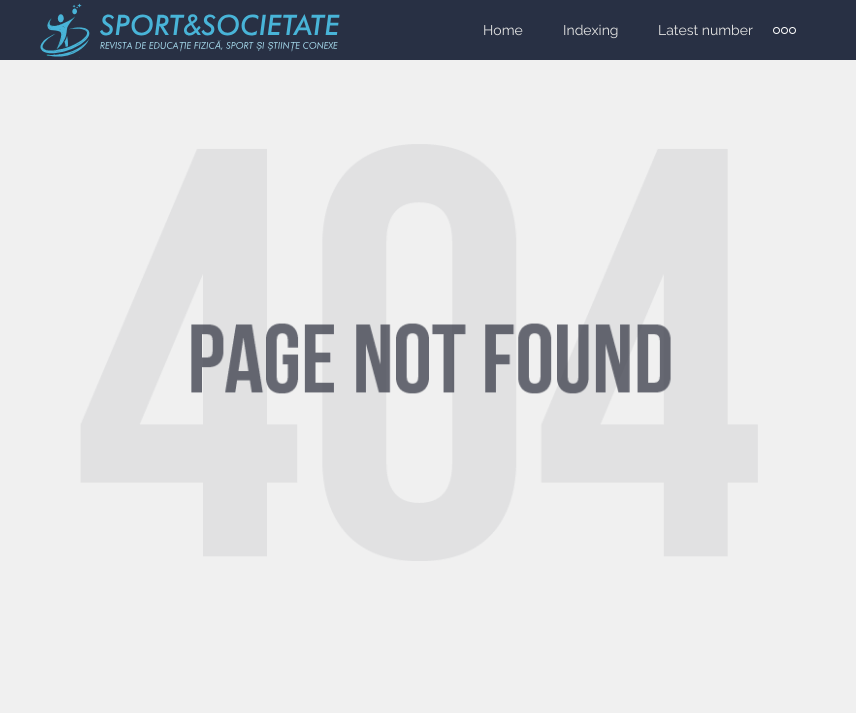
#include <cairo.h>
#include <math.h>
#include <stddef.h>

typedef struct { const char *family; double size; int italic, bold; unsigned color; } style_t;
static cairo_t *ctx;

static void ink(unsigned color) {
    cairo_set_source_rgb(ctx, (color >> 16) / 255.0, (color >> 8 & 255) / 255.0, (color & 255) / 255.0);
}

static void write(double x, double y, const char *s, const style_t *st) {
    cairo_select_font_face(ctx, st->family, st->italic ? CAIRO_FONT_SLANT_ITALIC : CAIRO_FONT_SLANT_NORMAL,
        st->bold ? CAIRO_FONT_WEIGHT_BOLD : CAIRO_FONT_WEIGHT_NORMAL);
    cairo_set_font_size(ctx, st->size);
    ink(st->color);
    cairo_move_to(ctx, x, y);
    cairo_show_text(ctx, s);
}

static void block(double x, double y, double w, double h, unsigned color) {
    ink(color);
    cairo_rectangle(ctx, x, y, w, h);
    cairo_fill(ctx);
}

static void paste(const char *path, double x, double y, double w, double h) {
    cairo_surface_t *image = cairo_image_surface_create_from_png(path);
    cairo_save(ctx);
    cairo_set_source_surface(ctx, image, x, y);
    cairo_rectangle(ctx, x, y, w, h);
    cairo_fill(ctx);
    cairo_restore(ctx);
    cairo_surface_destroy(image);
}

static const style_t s1 = {"Raleway", 14, 0, 0, 0xe4e4e3};

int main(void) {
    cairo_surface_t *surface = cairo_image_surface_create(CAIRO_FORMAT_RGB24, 856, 713);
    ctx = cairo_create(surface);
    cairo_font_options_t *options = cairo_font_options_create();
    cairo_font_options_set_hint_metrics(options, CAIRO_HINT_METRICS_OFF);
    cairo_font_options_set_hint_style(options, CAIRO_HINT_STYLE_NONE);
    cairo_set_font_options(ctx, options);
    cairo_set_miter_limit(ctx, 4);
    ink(0xf0f0f0);
    cairo_paint(ctx);
    block(0, 0, 856, 60, 0x283044);
    paste("pic1.png", 40, 3, 300, 55);
    write(483, 35, "Home", &s1);
    write(563, 35, "Indexing", &s1);
    write(658, 35, "Latest number", &s1);
    cairo_new_path(ctx);
    cairo_arc(ctx, 776.5, 30.5, 3, 0, 2 * M_PI);
    ink(0xffffff);
    cairo_set_line_width(ctx, 1);
    cairo_stroke(ctx);
    cairo_arc(ctx, 784.5, 30.5, 3, 0, 2 * M_PI);
    cairo_stroke(ctx);
    cairo_arc(ctx, 792.5, 30.5, 3, 0, 2 * M_PI);
    cairo_stroke(ctx);
    paste("pic2.png", 80, 144, 678, 417);
    cairo_surface_write_to_png(surface, "screenshot.png");
    cairo_font_options_destroy(options);
    cairo_destroy(ctx);
    cairo_surface_destroy(surface);
    return 0;
}
